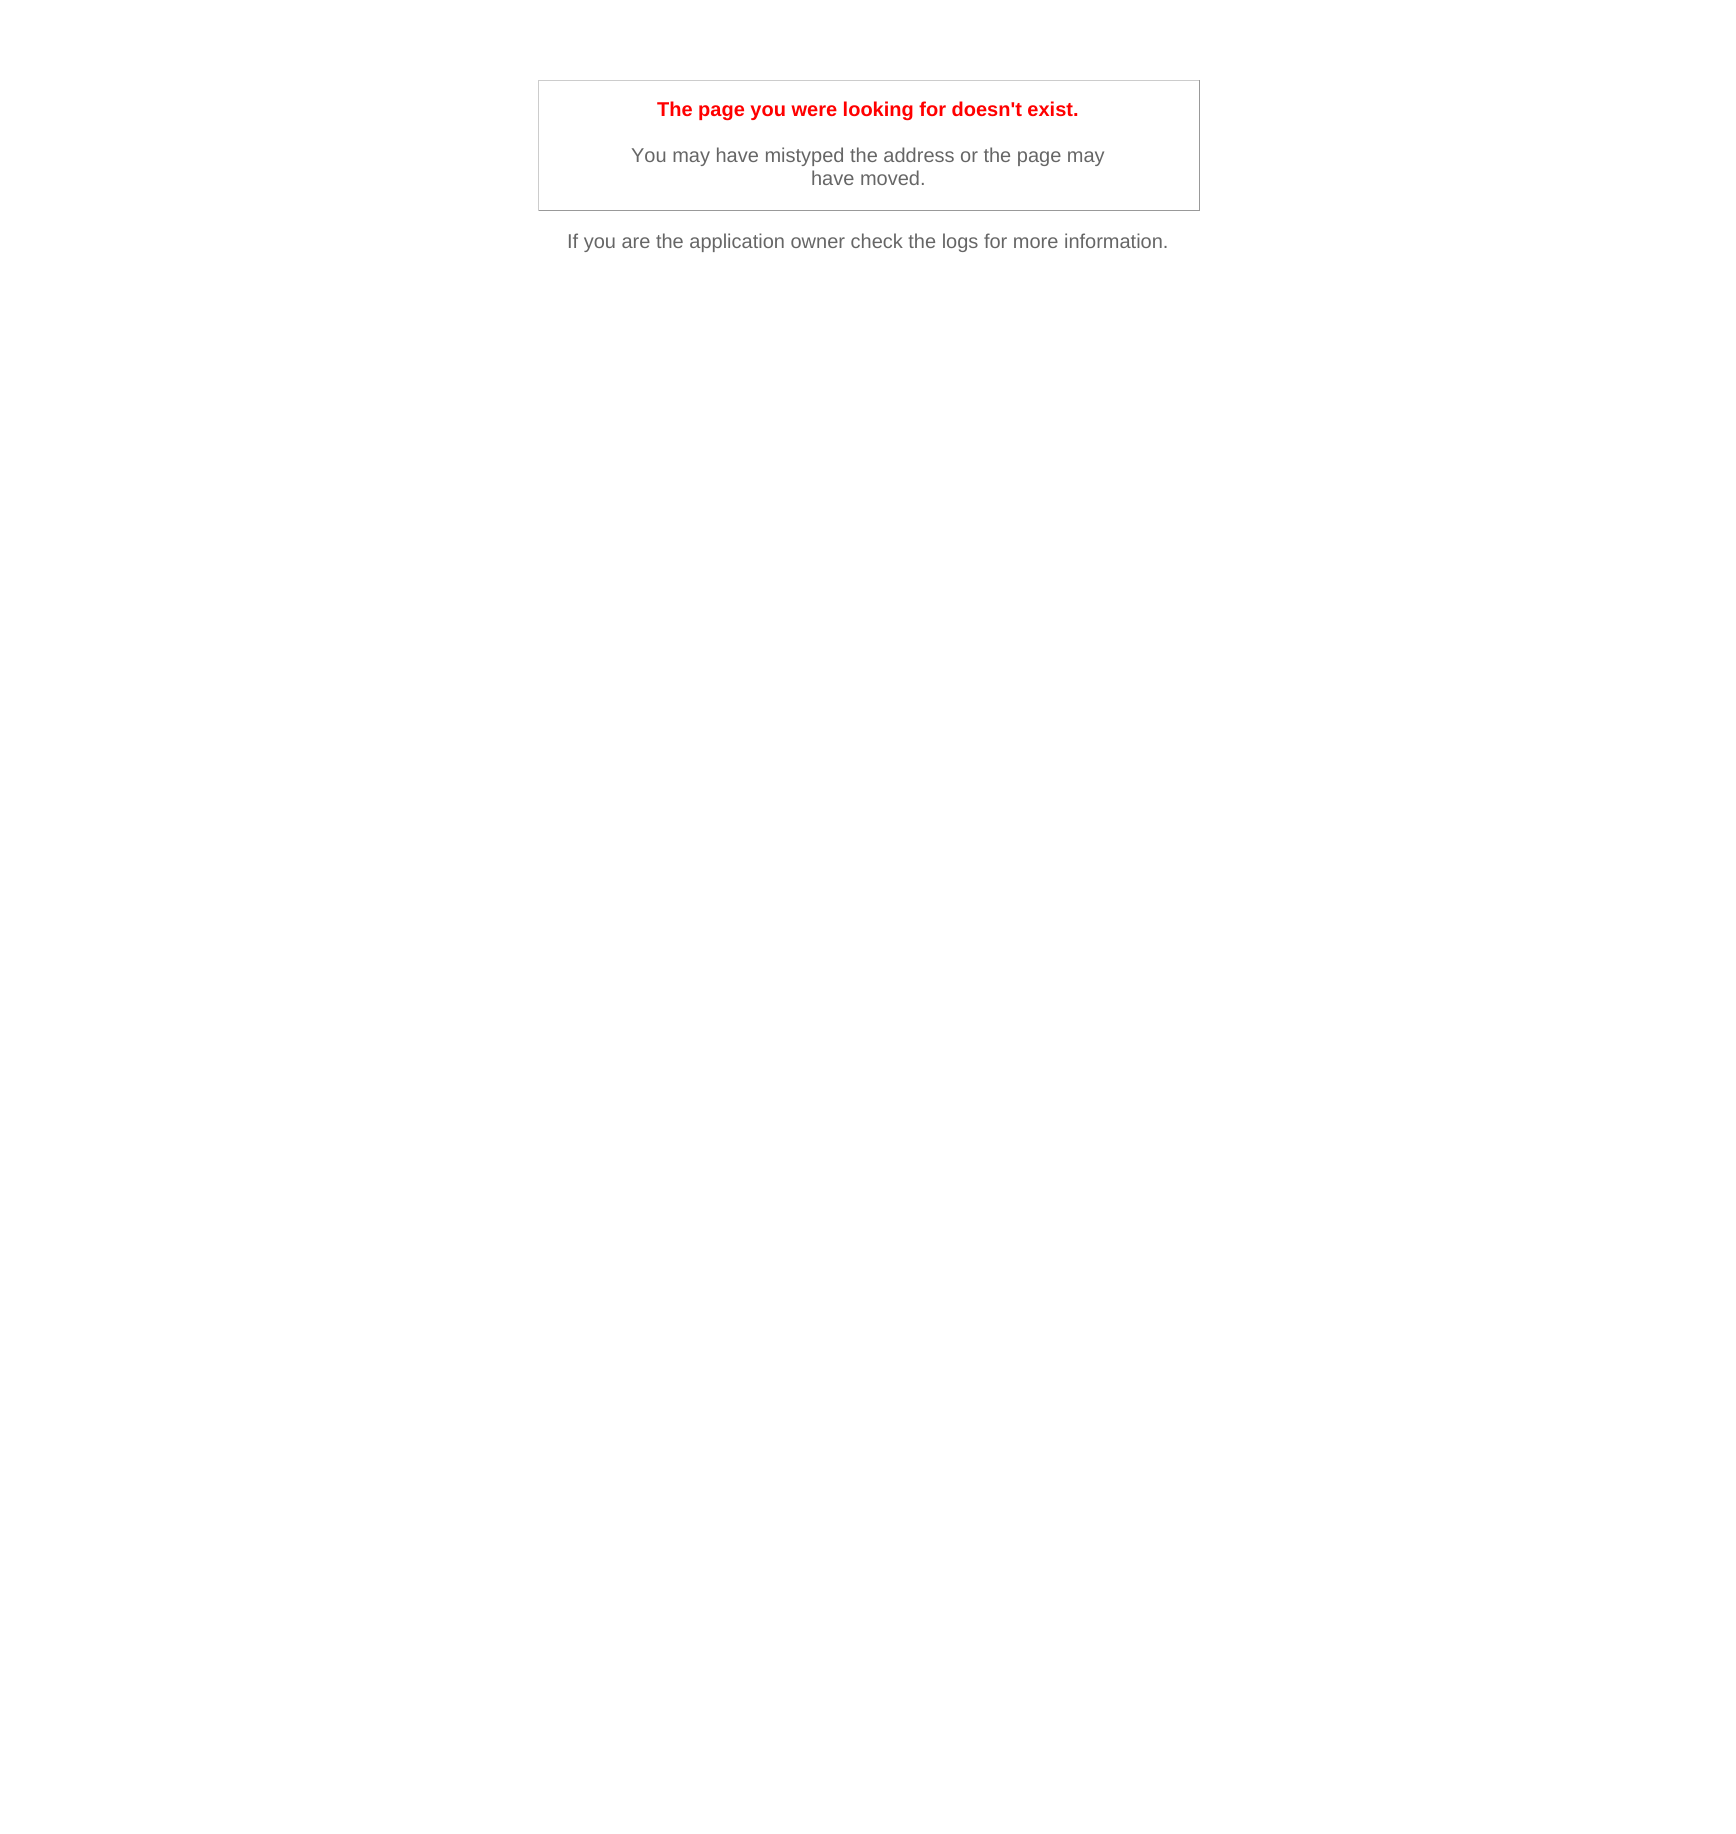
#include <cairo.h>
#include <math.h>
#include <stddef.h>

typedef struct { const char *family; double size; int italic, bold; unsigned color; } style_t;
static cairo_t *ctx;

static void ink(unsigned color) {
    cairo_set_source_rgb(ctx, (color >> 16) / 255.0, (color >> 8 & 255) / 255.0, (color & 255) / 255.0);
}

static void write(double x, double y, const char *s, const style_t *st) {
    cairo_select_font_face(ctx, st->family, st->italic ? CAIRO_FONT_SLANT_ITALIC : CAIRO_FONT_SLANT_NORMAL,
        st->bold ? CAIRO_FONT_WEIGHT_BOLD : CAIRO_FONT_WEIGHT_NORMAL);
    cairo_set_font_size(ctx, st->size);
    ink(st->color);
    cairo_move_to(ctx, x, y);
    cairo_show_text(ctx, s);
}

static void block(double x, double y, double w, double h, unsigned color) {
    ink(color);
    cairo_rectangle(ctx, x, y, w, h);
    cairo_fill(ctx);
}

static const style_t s1 = {"Liberation Sans", 20, 0, 1, 0xff0000};
static const style_t s2 = {"Liberation Sans", 20, 0, 0, 0x666666};

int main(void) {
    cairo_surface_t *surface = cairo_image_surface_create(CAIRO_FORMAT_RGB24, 1736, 1834);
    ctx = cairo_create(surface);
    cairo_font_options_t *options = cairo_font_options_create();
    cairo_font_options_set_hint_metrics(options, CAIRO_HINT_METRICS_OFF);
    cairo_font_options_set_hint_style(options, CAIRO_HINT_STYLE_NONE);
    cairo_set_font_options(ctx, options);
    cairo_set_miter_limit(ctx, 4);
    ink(0xffffff);
    cairo_paint(ctx);
    block(538, 80, 662, 1, 0xcccccc);
    block(1199, 80, 1, 131, 0x999999);
    block(538, 210, 662, 1, 0x999999);
    block(538, 80, 1, 131, 0xcccccc);
    write(657, 116, "The page you were looking for doesn't exist.", &s1);
    write(631, 162, "You may have mistyped the address or the page may", &s2);
    write(811, 185, "have moved.", &s2);
    write(567, 248, "If you are the application owner check the logs for more information.", &s2);
    cairo_surface_write_to_png(surface, "screenshot.png");
    cairo_font_options_destroy(options);
    cairo_destroy(ctx);
    cairo_surface_destroy(surface);
    return 0;
}
